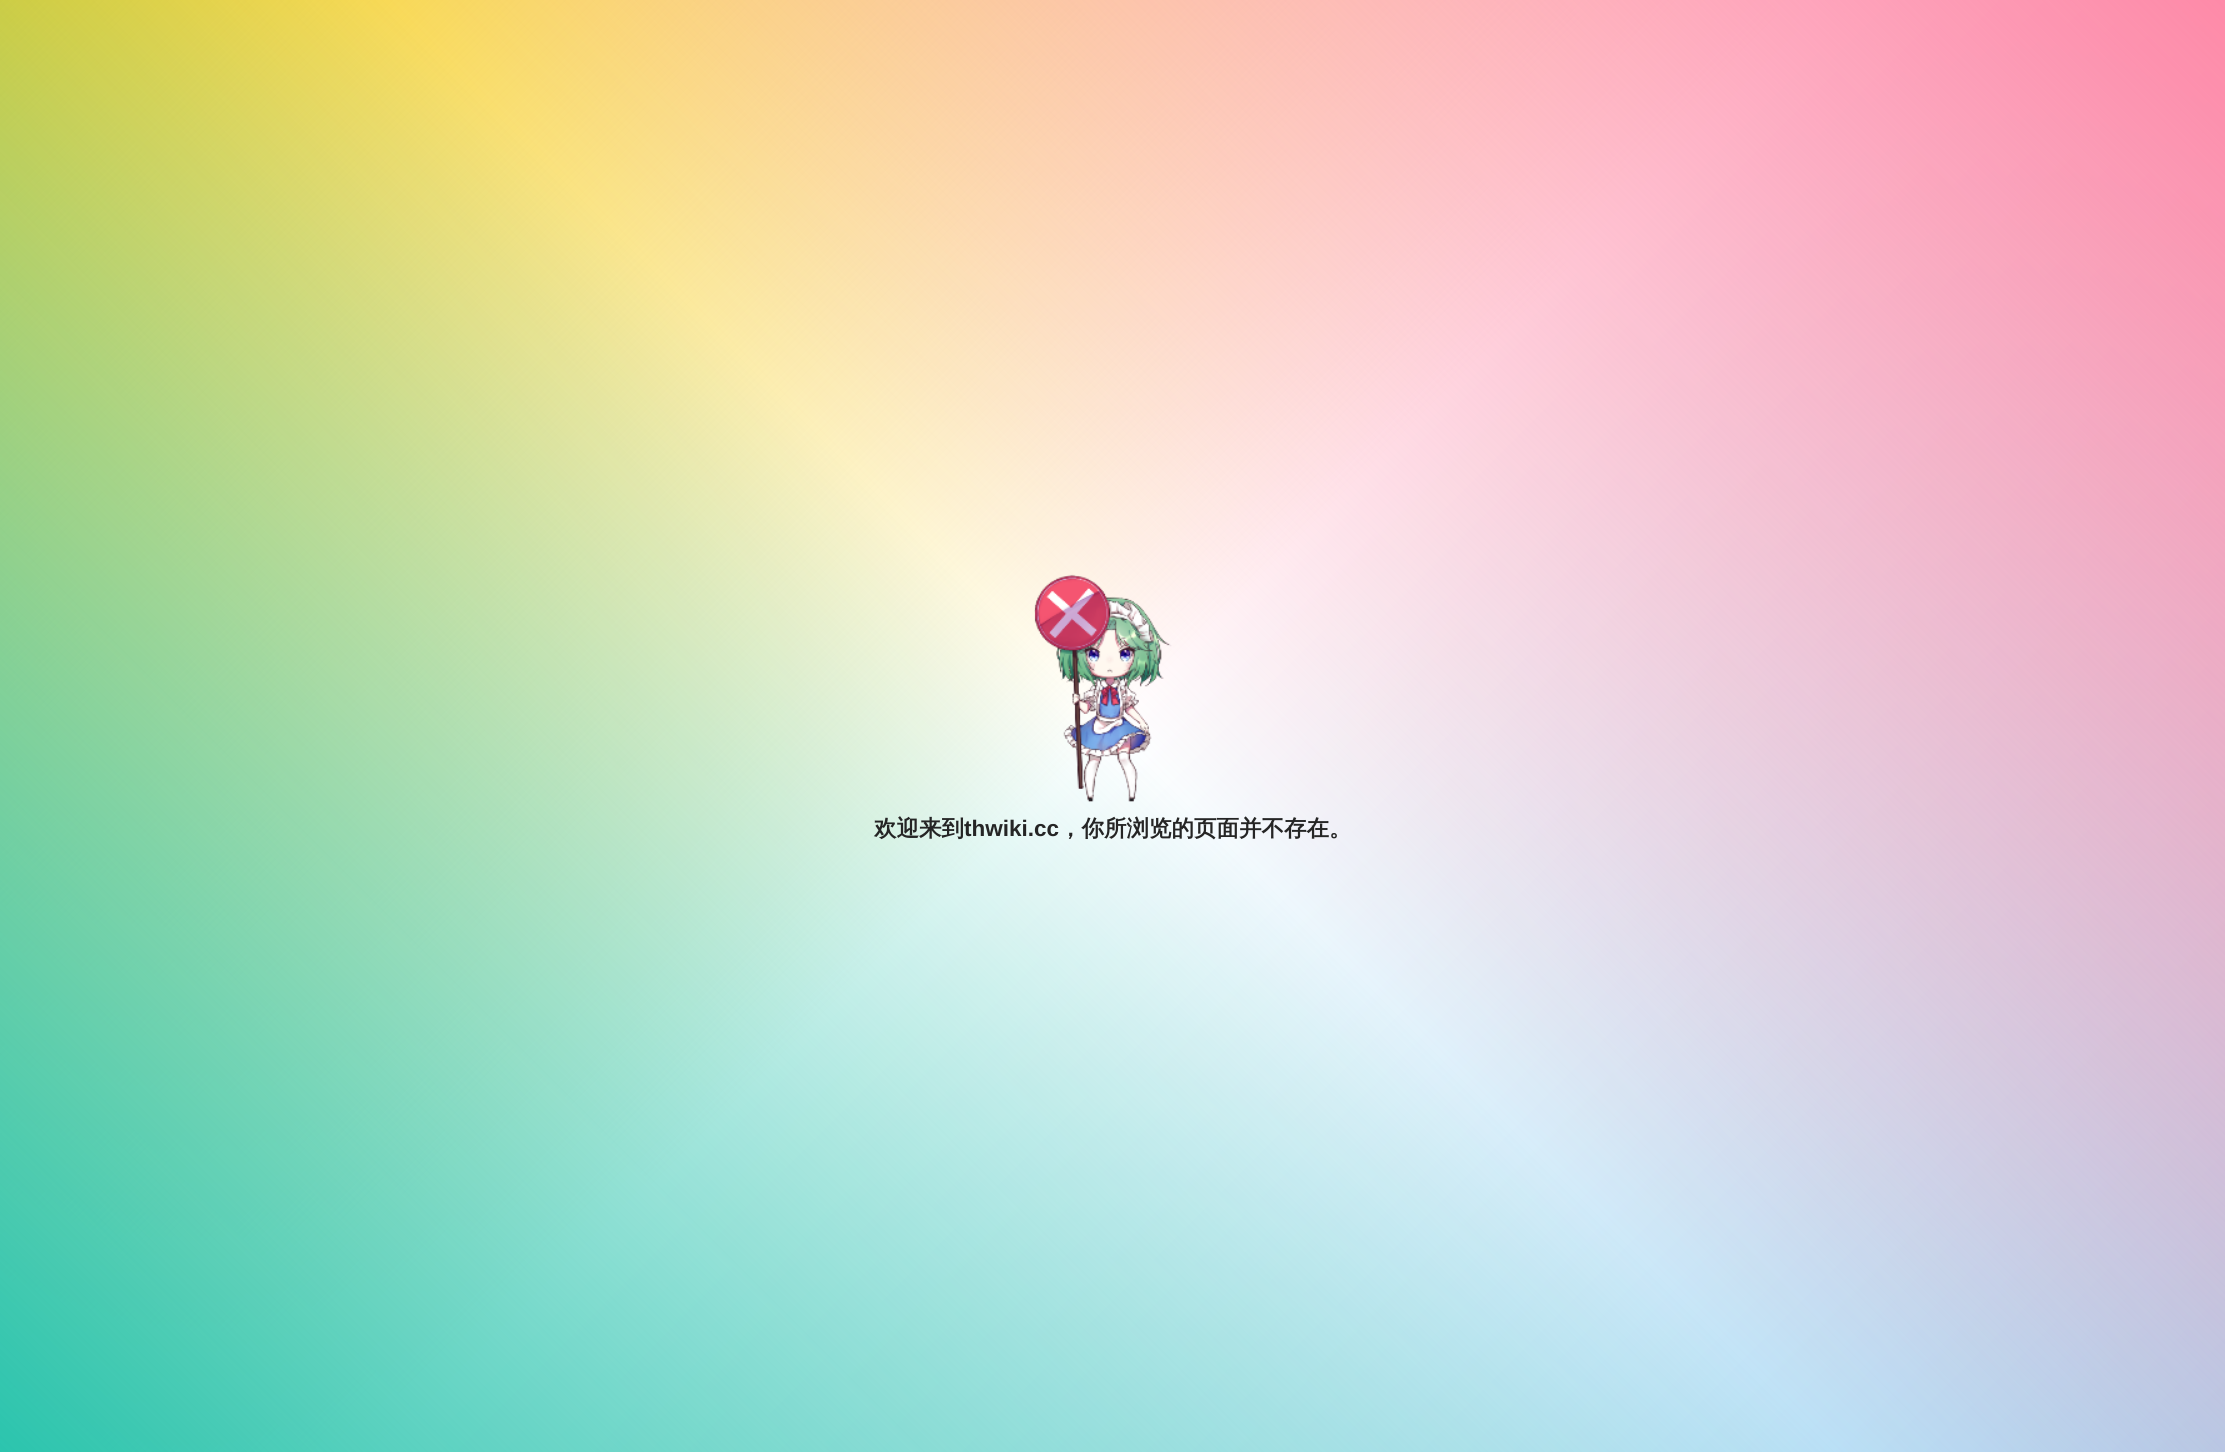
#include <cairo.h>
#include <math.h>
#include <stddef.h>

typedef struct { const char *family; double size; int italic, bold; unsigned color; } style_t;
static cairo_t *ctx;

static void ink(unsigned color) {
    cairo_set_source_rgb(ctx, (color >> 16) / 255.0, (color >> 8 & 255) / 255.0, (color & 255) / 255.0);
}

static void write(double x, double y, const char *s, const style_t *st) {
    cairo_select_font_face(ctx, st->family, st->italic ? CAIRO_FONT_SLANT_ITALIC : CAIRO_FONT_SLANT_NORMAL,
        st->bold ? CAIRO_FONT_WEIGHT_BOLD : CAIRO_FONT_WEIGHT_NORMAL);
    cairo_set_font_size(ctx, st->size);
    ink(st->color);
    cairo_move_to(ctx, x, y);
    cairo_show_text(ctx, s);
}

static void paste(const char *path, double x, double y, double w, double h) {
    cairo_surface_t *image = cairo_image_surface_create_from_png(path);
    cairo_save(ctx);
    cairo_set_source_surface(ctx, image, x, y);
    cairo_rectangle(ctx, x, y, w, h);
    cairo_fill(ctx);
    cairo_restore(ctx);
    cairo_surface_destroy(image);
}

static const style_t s1 = {"WenQuanYi Zen Hei", 22.5, 0, 1, 0x252525};
static const style_t s2 = {"Liberation Sans", 22.5, 0, 1, 0x252525};

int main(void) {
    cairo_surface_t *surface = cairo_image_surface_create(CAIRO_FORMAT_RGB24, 2225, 1452);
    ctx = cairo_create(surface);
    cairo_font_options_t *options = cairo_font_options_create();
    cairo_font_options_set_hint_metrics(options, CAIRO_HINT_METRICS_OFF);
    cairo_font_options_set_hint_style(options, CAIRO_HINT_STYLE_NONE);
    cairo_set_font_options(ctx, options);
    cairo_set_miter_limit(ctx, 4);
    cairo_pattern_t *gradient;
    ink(0xffffff);
    cairo_paint(ctx);
    gradient = cairo_pattern_create_linear(193, -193, 2032, 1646);
    cairo_pattern_add_color_stop_rgba(gradient, 0.5, 1, 1, 1, 1);
    cairo_pattern_add_color_stop_rgba(gradient, 1, 0.655, 0.843, 0.953, 1);
    cairo_set_source(ctx, gradient);
    cairo_pattern_destroy(gradient);
    cairo_rectangle(ctx, 440, 0, 1785, 1452);
    cairo_fill(ctx);
    gradient = cairo_pattern_create_linear(193, -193, 2032, 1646);
    cairo_pattern_add_color_stop_rgba(gradient, 0, 0.965, 0.812, 0.165, 1);
    cairo_pattern_add_color_stop_rgba(gradient, 0.5, 0.965, 0.812, 0.165, 0);
    cairo_set_source(ctx, gradient);
    cairo_pattern_destroy(gradient);
    cairo_rectangle(ctx, 0, 0, 1799, 1452);
    cairo_fill(ctx);
    gradient = cairo_pattern_create_linear(193, 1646, 2032, -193);
    cairo_pattern_add_color_stop_rgba(gradient, 0, 0.169, 0.769, 0.682, 1);
    cairo_pattern_add_color_stop_rgba(gradient, 0.5, 0.169, 0.769, 0.682, 0);
    cairo_pattern_add_color_stop_rgba(gradient, 0.5, 0.996, 0.541, 0.659, 0);
    cairo_pattern_add_color_stop_rgba(gradient, 1, 0.996, 0.541, 0.659, 1);
    cairo_set_source(ctx, gradient);
    cairo_pattern_destroy(gradient);
    cairo_rectangle(ctx, 0, 0, 2225, 1452);
    cairo_fill(ctx);
    paste("pic1.png", 1034, 574, 138, 228);
    write(874, 836, "欢迎来到", &s1);
    write(964, 836, "thwiki.cc", &s2);
    write(1059, 836, "，你所浏览的页面并不存在。", &s1);
    cairo_surface_write_to_png(surface, "screenshot.png");
    cairo_font_options_destroy(options);
    cairo_destroy(ctx);
    cairo_surface_destroy(surface);
    return 0;
}
